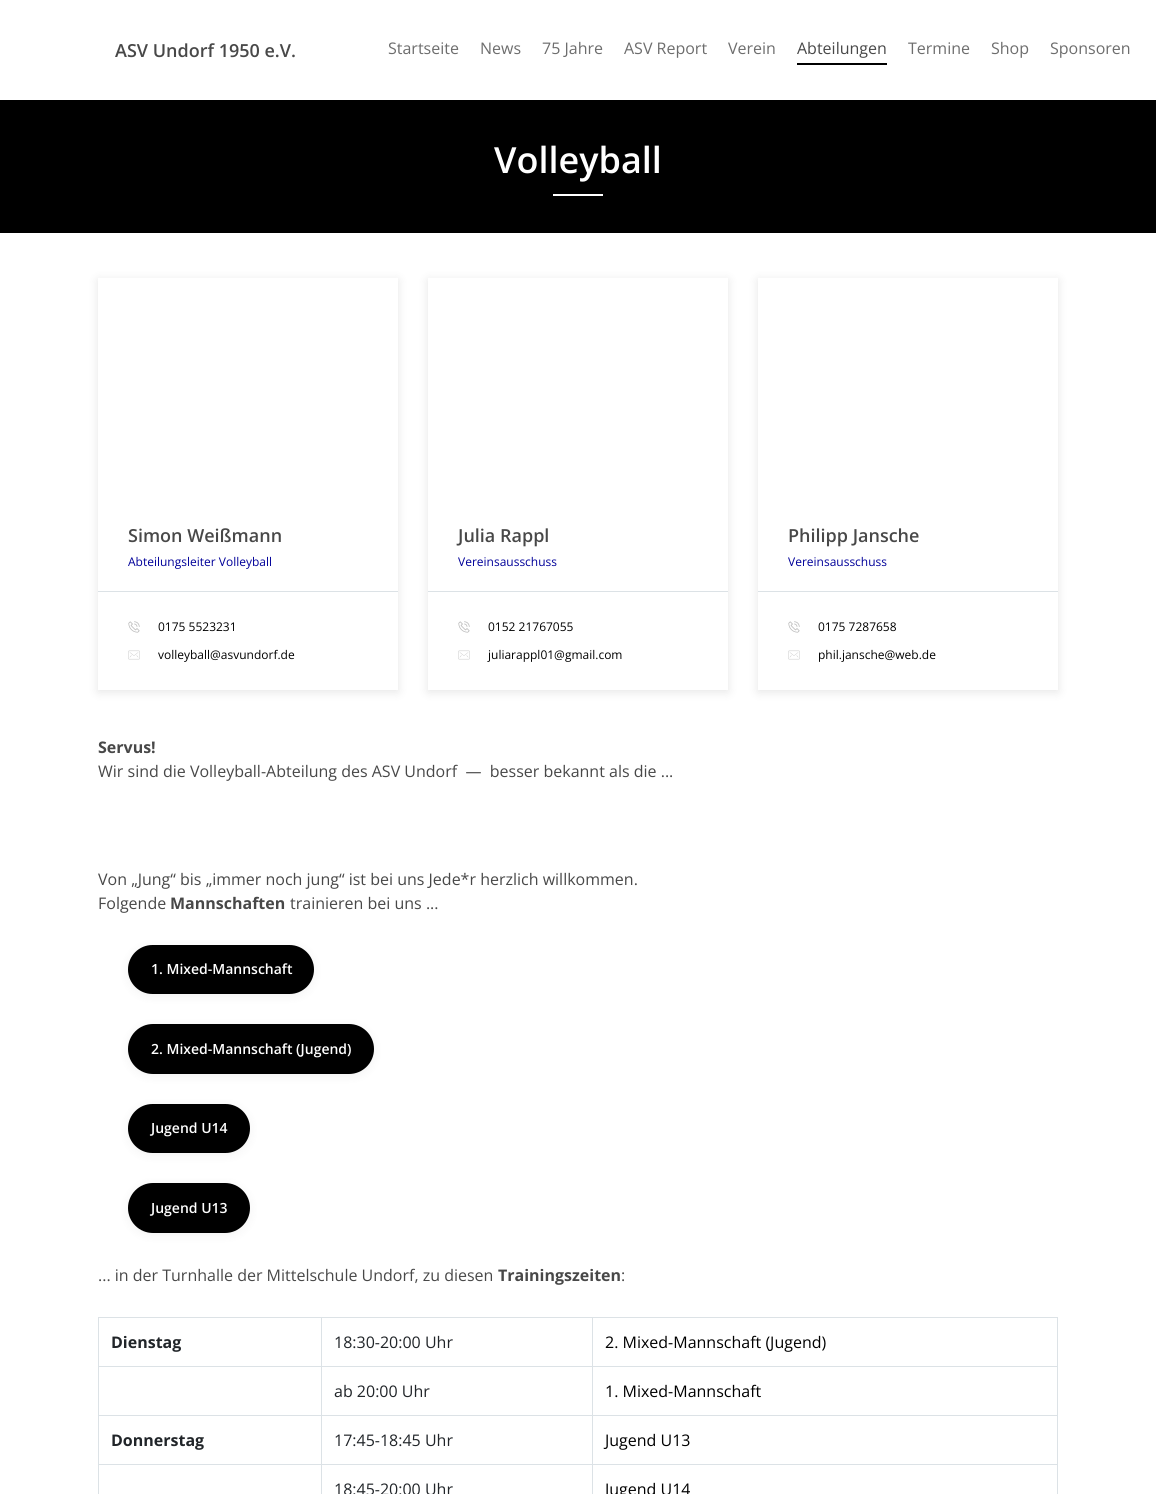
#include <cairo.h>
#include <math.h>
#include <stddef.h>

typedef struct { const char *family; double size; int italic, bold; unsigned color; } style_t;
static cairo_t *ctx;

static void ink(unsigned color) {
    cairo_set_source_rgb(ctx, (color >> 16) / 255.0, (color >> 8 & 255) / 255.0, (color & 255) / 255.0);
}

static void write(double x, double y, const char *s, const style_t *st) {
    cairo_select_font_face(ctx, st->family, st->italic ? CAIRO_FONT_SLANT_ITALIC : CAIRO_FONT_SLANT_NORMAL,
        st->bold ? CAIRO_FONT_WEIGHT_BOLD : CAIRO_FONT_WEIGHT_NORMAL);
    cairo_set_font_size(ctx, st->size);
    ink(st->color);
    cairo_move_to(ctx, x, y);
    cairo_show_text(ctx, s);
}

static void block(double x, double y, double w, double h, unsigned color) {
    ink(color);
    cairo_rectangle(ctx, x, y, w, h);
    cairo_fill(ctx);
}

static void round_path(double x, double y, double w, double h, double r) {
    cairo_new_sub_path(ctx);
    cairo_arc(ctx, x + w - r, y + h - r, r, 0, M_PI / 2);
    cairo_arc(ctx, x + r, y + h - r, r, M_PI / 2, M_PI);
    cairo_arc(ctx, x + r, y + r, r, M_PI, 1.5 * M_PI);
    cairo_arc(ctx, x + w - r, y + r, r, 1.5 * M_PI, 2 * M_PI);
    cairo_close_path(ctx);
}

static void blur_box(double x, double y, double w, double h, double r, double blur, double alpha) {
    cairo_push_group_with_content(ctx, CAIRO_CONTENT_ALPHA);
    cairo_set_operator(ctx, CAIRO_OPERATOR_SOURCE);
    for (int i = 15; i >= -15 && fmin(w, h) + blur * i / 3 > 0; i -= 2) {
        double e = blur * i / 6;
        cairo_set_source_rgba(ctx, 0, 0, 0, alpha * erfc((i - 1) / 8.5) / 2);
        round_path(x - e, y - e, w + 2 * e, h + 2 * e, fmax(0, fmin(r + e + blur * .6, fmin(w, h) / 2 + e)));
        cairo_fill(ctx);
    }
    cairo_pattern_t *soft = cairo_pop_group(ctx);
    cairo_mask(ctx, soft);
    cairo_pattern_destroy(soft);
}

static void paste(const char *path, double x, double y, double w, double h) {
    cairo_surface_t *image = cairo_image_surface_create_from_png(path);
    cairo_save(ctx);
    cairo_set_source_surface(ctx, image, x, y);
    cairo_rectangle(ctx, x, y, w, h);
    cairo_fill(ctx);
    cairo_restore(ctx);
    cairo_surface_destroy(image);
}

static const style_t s1 = {"Open Sans SemiBold", 18, 0, 0, 0x484848};
static const style_t s2 = {"Open Sans", 16, 0, 0, 0x6d6d6d};
static const style_t s3 = {"Open Sans", 16, 0, 0, 0x484848};
static const style_t s4 = {"Open Sans SemiBold", 36, 0, 0, 0xffffff};
static const style_t s5 = {"Open Sans", 12, 0, 0, 0x000099};
static const style_t s6 = {"Open Sans", 12, 0, 0, 0x000000};
static const style_t s7 = {"Open Sans", 16, 0, 1, 0x484848};
static const style_t s8 = {"Open Sans SemiBold", 14, 0, 0, 0xffffff};
static const style_t s9 = {"Open Sans", 16, 0, 1, 0x212529};
static const style_t s10 = {"Open Sans", 16, 0, 0, 0x212529};
static const style_t s11 = {"Open Sans", 16, 0, 0, 0x000000};

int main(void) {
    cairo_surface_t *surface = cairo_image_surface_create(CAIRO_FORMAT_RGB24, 1156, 1494);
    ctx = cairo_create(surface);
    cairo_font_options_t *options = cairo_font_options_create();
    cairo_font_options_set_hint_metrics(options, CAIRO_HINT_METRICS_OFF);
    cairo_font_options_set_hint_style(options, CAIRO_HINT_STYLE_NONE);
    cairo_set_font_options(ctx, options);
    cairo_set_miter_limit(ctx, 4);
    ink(0xffffff);
    cairo_paint(ctx);
    write(115, 57, "ASV Undorf 1950 e.V.", &s1);
    write(388, 54, "Startseite", &s2);
    write(480, 54, "News", &s2);
    write(542, 54, "75 Jahre", &s2);
    write(624, 54, "ASV Report", &s2);
    write(728, 54, "Verein", &s2);
    block(797, 63, 90, 2, 0x000000);
    write(797, 54, "Abteilungen", &s3);
    write(908, 54, "Termine", &s2);
    write(991, 54, "Shop", &s2);
    write(1050, 54, "Sponsoren", &s2);
    block(0, 100, 1156, 133, 0x000000);
    write(494, 173, "Volleyball", &s4);
    block(553, 194, 50, 2, 0xffffff);
    cairo_save(ctx);
    cairo_set_fill_rule(ctx, CAIRO_FILL_RULE_EVEN_ODD);
    cairo_new_path(ctx);
    cairo_move_to(ctx, 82, 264);
    cairo_line_to(ctx, 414, 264);
    cairo_line_to(ctx, 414, 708);
    cairo_line_to(ctx, 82, 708);
    cairo_close_path(ctx);
    cairo_move_to(ctx, 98, 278);
    cairo_line_to(ctx, 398, 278);
    cairo_line_to(ctx, 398, 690);
    cairo_line_to(ctx, 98, 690);
    cairo_close_path(ctx);
    cairo_clip(ctx);
    ink(0x000000);
    blur_box(98, 280, 300, 412, 0, 5, 0.1);
    cairo_restore(ctx);
    write(128, 542, "Simon Weißmann", &s1);
    write(128, 566, "Abteilungsleiter Volleyball", &s5);
    block(98, 591, 300, 1, 0xdce2e6);
    paste("pic1.png", 128, 621, 12, 12);
    write(158, 631, "0175 5523231", &s6);
    paste("pic2.png", 128, 650, 12, 10);
    write(158, 659, "volleyball@asvundorf.de", &s6);
    cairo_save(ctx);
    cairo_set_fill_rule(ctx, CAIRO_FILL_RULE_EVEN_ODD);
    cairo_new_path(ctx);
    cairo_move_to(ctx, 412, 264);
    cairo_line_to(ctx, 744, 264);
    cairo_line_to(ctx, 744, 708);
    cairo_line_to(ctx, 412, 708);
    cairo_close_path(ctx);
    cairo_move_to(ctx, 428, 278);
    cairo_line_to(ctx, 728, 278);
    cairo_line_to(ctx, 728, 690);
    cairo_line_to(ctx, 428, 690);
    cairo_close_path(ctx);
    cairo_clip(ctx);
    ink(0x000000);
    blur_box(428, 280, 300, 412, 0, 5, 0.1);
    cairo_restore(ctx);
    write(458, 542, "Julia Rappl", &s1);
    write(458, 566, "Vereinsausschuss", &s5);
    block(428, 591, 300, 1, 0xdce2e6);
    paste("pic1.png", 458, 621, 12, 12);
    write(488, 631, "0152 21767055", &s6);
    paste("pic2.png", 458, 650, 12, 10);
    write(488, 659, "juliarappl01@gmail.com", &s6);
    cairo_save(ctx);
    cairo_set_fill_rule(ctx, CAIRO_FILL_RULE_EVEN_ODD);
    cairo_new_path(ctx);
    cairo_move_to(ctx, 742, 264);
    cairo_line_to(ctx, 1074, 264);
    cairo_line_to(ctx, 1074, 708);
    cairo_line_to(ctx, 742, 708);
    cairo_close_path(ctx);
    cairo_move_to(ctx, 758, 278);
    cairo_line_to(ctx, 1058, 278);
    cairo_line_to(ctx, 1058, 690);
    cairo_line_to(ctx, 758, 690);
    cairo_close_path(ctx);
    cairo_clip(ctx);
    ink(0x000000);
    blur_box(758, 280, 300, 412, 0, 5, 0.1);
    cairo_restore(ctx);
    write(788, 542, "Philipp Jansche", &s1);
    write(788, 566, "Vereinsausschuss", &s5);
    block(758, 591, 300, 1, 0xdce2e6);
    paste("pic1.png", 788, 621, 12, 12);
    write(818, 631, "0175 7287658", &s6);
    paste("pic2.png", 788, 650, 12, 10);
    write(818, 659, "phil.jansche@web.de", &s6);
    write(98, 753, "Servus!", &s7);
    write(98, 777, "Wir sind die Volleyball-Abteilung des ASV Undorf  —  besser bekannt als die ...", &s3);
    write(98, 885, "Von „Jung“ bis „immer noch jung“ ist bei uns Jede*r herzlich willkommen.", &s3);
    write(98, 909, "Folgende", &s3);
    write(170, 909, "Mannschaften", &s7);
    write(290, 909, "trainieren bei uns ...", &s3);
    ink(0x000000);
    blur_box(128, 947, 186, 49, 24.5, 5, 0.05);
    ink(0x000000);
    round_path(128, 945, 186, 49, 24.5);
    cairo_fill(ctx);
    write(151, 974, "1. Mixed-Mannschaft", &s8);
    ink(0x000000);
    blur_box(128, 1026, 246, 50, 25, 5, 0.05);
    ink(0x000000);
    round_path(128, 1024, 246, 50, 25);
    cairo_fill(ctx);
    write(151, 1054, "2. Mixed-Mannschaft (Jugend)", &s8);
    ink(0x000000);
    blur_box(128, 1106, 122, 49, 24.5, 5, 0.05);
    ink(0x000000);
    round_path(128, 1104, 122, 49, 24.5);
    cairo_fill(ctx);
    write(151, 1133, "Jugend U14", &s8);
    ink(0x000000);
    blur_box(128, 1185, 122, 50, 25, 5, 0.05);
    ink(0x000000);
    round_path(128, 1183, 122, 50, 25);
    cairo_fill(ctx);
    write(151, 1213, "Jugend U13", &s8);
    write(98, 1281, "... in der Turnhalle der Mittelschule Undorf, zu diesen", &s3);
    write(498, 1281, "Trainingszeiten", &s7);
    write(621, 1281, ":", &s3);
    block(592, 1317, 466, 1, 0xdce2e6);
    block(592, 1366, 466, 1, 0xdce2e6);
    block(592, 1415, 466, 1, 0xdce2e6);
    block(592, 1464, 466, 1, 0xdce2e6);
    block(592, 1464, 1, 30, 0xdce2e6);
    block(321, 1464, 272, 1, 0xdce2e6);
    block(592, 1415, 1, 50, 0xdce2e6);
    block(321, 1415, 272, 1, 0xdce2e6);
    block(592, 1366, 1, 50, 0xdce2e6);
    block(321, 1366, 272, 1, 0xdce2e6);
    block(592, 1317, 1, 50, 0xdce2e6);
    block(321, 1317, 272, 1, 0xdce2e6);
    block(321, 1464, 1, 30, 0xdce2e6);
    block(98, 1464, 224, 1, 0xdce2e6);
    block(321, 1415, 1, 50, 0xdce2e6);
    block(98, 1415, 224, 1, 0xdce2e6);
    block(321, 1366, 1, 50, 0xdce2e6);
    block(98, 1366, 224, 1, 0xdce2e6);
    block(321, 1317, 1, 50, 0xdce2e6);
    block(98, 1317, 224, 1, 0xdce2e6);
    block(98, 1464, 1, 30, 0xdce2e6);
    block(98, 1415, 1, 50, 0xdce2e6);
    block(98, 1366, 1, 50, 0xdce2e6);
    block(98, 1317, 1, 50, 0xdce2e6);
    write(111, 1348, "Dienstag", &s9);
    write(334, 1348, "18:30-20:00 Uhr", &s10);
    block(1057, 1464, 1, 30, 0xdce2e6);
    block(1057, 1415, 1, 50, 0xdce2e6);
    block(1057, 1366, 1, 50, 0xdce2e6);
    block(1057, 1317, 1, 50, 0xdce2e6);
    write(605, 1348, "2. Mixed-Mannschaft (Jugend)", &s11);
    write(334, 1397, "ab 20:00 Uhr", &s10);
    write(605, 1397, "1. Mixed-Mannschaft", &s11);
    write(111, 1446, "Donnerstag", &s9);
    write(334, 1446, "17:45-18:45 Uhr", &s10);
    write(605, 1446, "Jugend U13", &s11);
    write(334, 1495, "18:45-20:00 Uhr", &s10);
    write(605, 1495, "Jugend U14", &s11);
    cairo_surface_write_to_png(surface, "screenshot.png");
    cairo_font_options_destroy(options);
    cairo_destroy(ctx);
    cairo_surface_destroy(surface);
    return 0;
}
